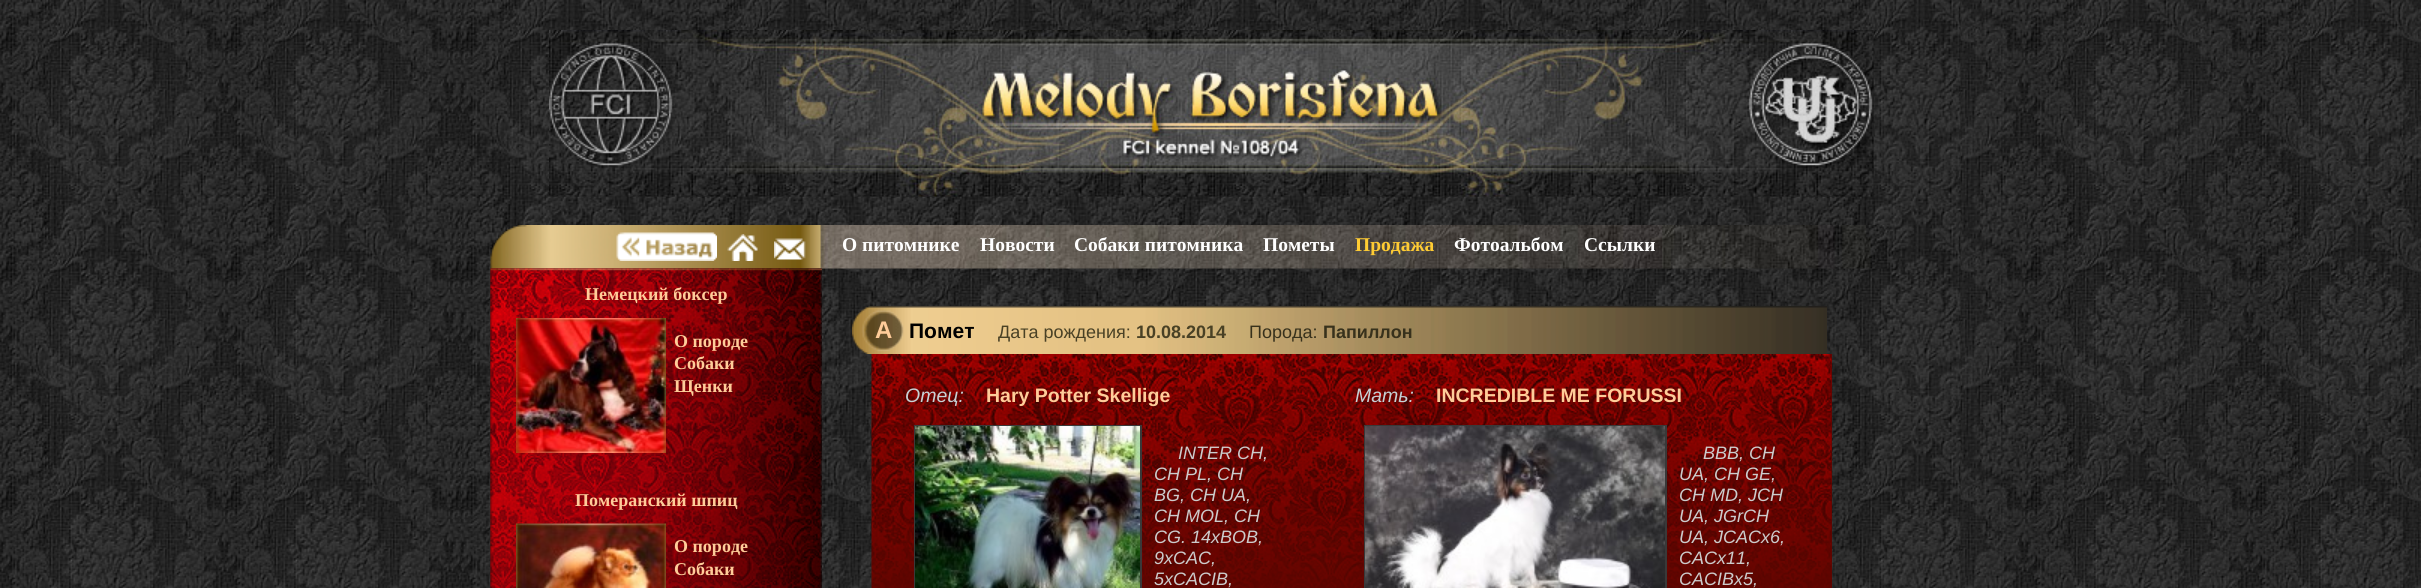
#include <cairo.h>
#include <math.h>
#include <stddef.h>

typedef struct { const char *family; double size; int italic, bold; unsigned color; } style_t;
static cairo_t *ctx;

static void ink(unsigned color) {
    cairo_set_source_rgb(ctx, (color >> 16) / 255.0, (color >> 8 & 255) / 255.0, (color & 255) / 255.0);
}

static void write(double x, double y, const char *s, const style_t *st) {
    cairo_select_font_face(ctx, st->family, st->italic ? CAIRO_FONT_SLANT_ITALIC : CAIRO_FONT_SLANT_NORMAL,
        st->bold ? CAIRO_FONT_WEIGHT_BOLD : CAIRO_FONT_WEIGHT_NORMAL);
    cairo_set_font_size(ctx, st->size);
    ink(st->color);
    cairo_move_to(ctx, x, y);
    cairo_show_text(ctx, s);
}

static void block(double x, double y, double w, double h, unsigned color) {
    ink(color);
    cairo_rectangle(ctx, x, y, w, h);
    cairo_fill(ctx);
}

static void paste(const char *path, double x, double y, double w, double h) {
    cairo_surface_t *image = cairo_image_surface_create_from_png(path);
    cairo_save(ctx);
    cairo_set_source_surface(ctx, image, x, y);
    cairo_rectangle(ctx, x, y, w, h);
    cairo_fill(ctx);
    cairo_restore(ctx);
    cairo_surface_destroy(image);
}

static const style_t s1 = {"Liberation Serif", 18, 0, 1, 0xffcc99};
static const style_t s2 = {"Liberation Serif", 19.5, 0, 1, 0xffffff};
static const style_t s3 = {"Liberation Serif", 19.5, 0, 1, 0xffcc33};
static const style_t s4 = {"Liberation Sans", 24, 0, 1, 0xffcc99};
static const style_t s5 = {"Liberation Sans", 21, 0, 1, 0x000000};
static const style_t s6 = {"Liberation Sans", 18, 0, 0, 0x494125};
static const style_t s7 = {"Liberation Sans", 18, 0, 1, 0x494125};
static const style_t s8 = {"Liberation Sans", 18, 0, 0, 0x37311c};
static const style_t s9 = {"Liberation Sans", 18, 0, 1, 0x37311c};
static const style_t s10 = {"Liberation Sans", 19.5, 1, 0, 0xc6d1d5};
static const style_t s11 = {"Liberation Sans", 19.5, 0, 1, 0xffcc99};
static const style_t s12 = {"Liberation Sans", 18, 1, 0, 0xcccccc};

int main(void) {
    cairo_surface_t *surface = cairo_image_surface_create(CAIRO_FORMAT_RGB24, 2421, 588);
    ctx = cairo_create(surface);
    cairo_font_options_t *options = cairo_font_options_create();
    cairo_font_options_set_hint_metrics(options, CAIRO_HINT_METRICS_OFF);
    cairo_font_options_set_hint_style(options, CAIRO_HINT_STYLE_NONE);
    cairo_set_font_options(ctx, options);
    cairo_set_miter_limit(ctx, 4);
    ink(0xffffff);
    cairo_paint(ctx);
    paste("pic1.png", 0, 0, 2421, 588);
    paste("pic2.png", 460, 0, 1501, 588);
    paste("pic3.png", 549, 30, 1325, 167);
    paste("pic4.png", 490, 225, 332, 44);
    paste("pic5.png", 616, 232, 101, 29);
    paste("pic6.png", 727, 234, 31, 27);
    paste("pic7.png", 774, 238, 32, 22);
    paste("pic8.png", 490, 268, 332, 320);
    paste("pic9.png", 490, 268, 332, 320);
    write(585, 300, "Немецкий боксер", &s1);
    paste("pic10.png", 516, 318, 150, 135);
    write(674, 347, "О породе", &s1);
    write(674, 369, "Собаки", &s1);
    write(674, 392, "Щенки", &s1);
    write(575, 506, "Померанский шпиц", &s1);
    paste("pic11.png", 516, 523, 150, 65);
    write(674, 552, "О породе", &s1);
    write(674, 575, "Собаки", &s1);
    paste("pic12.png", 822, 225, 1067, 44);
    write(842, 251, "О питомнике", &s2);
    write(980, 251, "Новости", &s2);
    write(1074, 251, "Собаки питомника", &s2);
    write(1263, 251, "Пометы", &s2);
    write(1355, 251, "Продажа", &s3);
    write(1454, 251, "Фотоальбом", &s2);
    write(1584, 251, "Ссылки", &s2);
    paste("pic13.png", 852, 306, 975, 48);
    write(875, 338, "A", &s4);
    write(909, 338, "Помет", &s5);
    write(998, 338, "Дата рождения:", &s6);
    write(1136, 338, "10.08.2014", &s7);
    write(1249, 338, "Порода:", &s8);
    write(1323, 338, "Папиллон", &s9);
    block(1831, 354, 1, 234, 0x5f0600);
    paste("pic14.png", 871, 354, 961, 234);
    write(905, 402, "Отец:", &s10);
    write(986, 402, "Hary Potter Skellige", &s11);
    cairo_rectangle(ctx, 915, 426, 226, 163);
    ink(0x393939);
    cairo_stroke(ctx);
    paste("pic15.png", 915, 426, 225, 162);
    write(1178, 459, "INTER CH,", &s12);
    write(1154, 480, "CH PL, CH", &s12);
    write(1154, 501, "BG, CH UA,", &s12);
    write(1154, 522, "CH MOL, CH", &s12);
    write(1154, 543, "CG. 14xBOB,", &s12);
    write(1154, 564, "9xCAC,", &s12);
    write(1154, 585, "5xCACIB,", &s12);
    write(1355, 402, "Мать:", &s10);
    write(1436, 402, "INCREDIBLE ME FORUSSI", &s11);
    cairo_rectangle(ctx, 1365, 426, 301, 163);
    ink(0x393939);
    cairo_stroke(ctx);
    paste("pic16.png", 1365, 426, 300, 162);
    write(1703, 459, "BBB, CH", &s12);
    write(1679, 480, "UA, CH GE,", &s12);
    write(1679, 501, "CH MD, JCH", &s12);
    write(1679, 522, "UA, JGrCH", &s12);
    write(1679, 543, "UA, JCACx6,", &s12);
    write(1679, 564, "CACx11,", &s12);
    write(1679, 585, "CACIBx5,", &s12);
    cairo_surface_write_to_png(surface, "screenshot.png");
    cairo_font_options_destroy(options);
    cairo_destroy(ctx);
    cairo_surface_destroy(surface);
    return 0;
}
